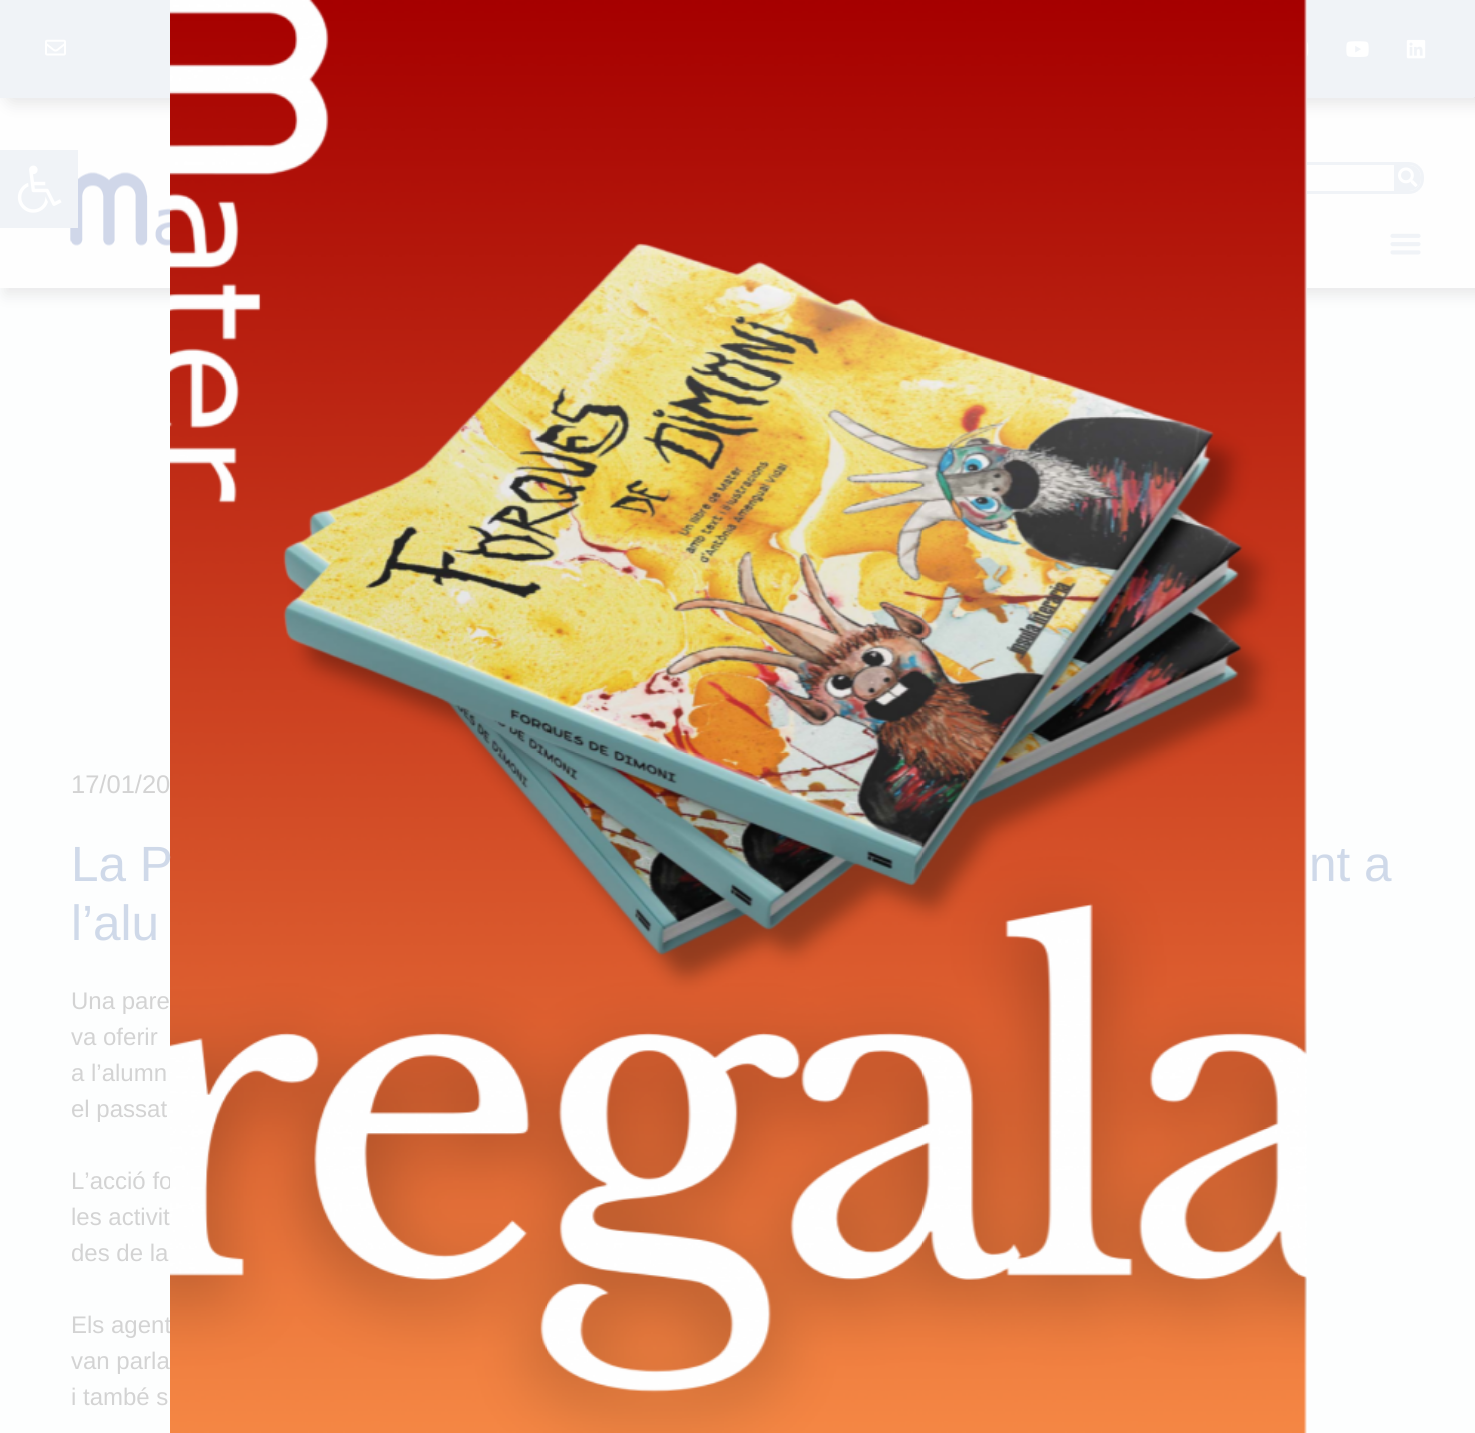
#include <cairo.h>
#include <math.h>
#include <stddef.h>

typedef struct { const char *family; double size; int italic, bold; unsigned color; } style_t;
static cairo_t *ctx;

static void ink(unsigned color) {
    cairo_set_source_rgb(ctx, (color >> 16) / 255.0, (color >> 8 & 255) / 255.0, (color & 255) / 255.0);
}

static void write(double x, double y, const char *s, const style_t *st) {
    cairo_select_font_face(ctx, st->family, st->italic ? CAIRO_FONT_SLANT_ITALIC : CAIRO_FONT_SLANT_NORMAL,
        st->bold ? CAIRO_FONT_WEIGHT_BOLD : CAIRO_FONT_WEIGHT_NORMAL);
    cairo_set_font_size(ctx, st->size);
    ink(st->color);
    cairo_move_to(ctx, x, y);
    cairo_show_text(ctx, s);
}

static void block(double x, double y, double w, double h, unsigned color) {
    ink(color);
    cairo_rectangle(ctx, x, y, w, h);
    cairo_fill(ctx);
}

static void round_path(double x, double y, double w, double h, double r) {
    cairo_new_sub_path(ctx);
    cairo_arc(ctx, x + w - r, y + h - r, r, 0, M_PI / 2);
    cairo_arc(ctx, x + r, y + h - r, r, M_PI / 2, M_PI);
    cairo_arc(ctx, x + r, y + r, r, M_PI, 1.5 * M_PI);
    cairo_arc(ctx, x + w - r, y + r, r, 1.5 * M_PI, 2 * M_PI);
    cairo_close_path(ctx);
}

static void blur_box(double x, double y, double w, double h, double r, double blur, double alpha) {
    cairo_push_group_with_content(ctx, CAIRO_CONTENT_ALPHA);
    cairo_set_operator(ctx, CAIRO_OPERATOR_SOURCE);
    for (int i = 15; i >= -15 && fmin(w, h) + blur * i / 3 > 0; i -= 2) {
        double e = blur * i / 6;
        cairo_set_source_rgba(ctx, 0, 0, 0, alpha * erfc((i - 1) / 8.5) / 2);
        round_path(x - e, y - e, w + 2 * e, h + 2 * e, fmax(0, fmin(r + e + blur * .6, fmin(w, h) / 2 + e)));
        cairo_fill(ctx);
    }
    cairo_pattern_t *soft = cairo_pop_group(ctx);
    cairo_mask(ctx, soft);
    cairo_pattern_destroy(soft);
}

static void paste(const char *path, double x, double y, double w, double h) {
    cairo_surface_t *image = cairo_image_surface_create_from_png(path);
    cairo_save(ctx);
    cairo_set_source_surface(ctx, image, x, y);
    cairo_rectangle(ctx, x, y, w, h);
    cairo_fill(ctx);
    cairo_restore(ctx);
    cairo_surface_destroy(image);
}

static const style_t s1 = {"Liberation Sans", 24, 0, 0, 0xd3d3d3};
static const style_t s2 = {"Liberation Sans", 25.5, 0, 0, 0xd3d3d3};
static const style_t s3 = {"Liberation Sans", 49.5, 0, 0, 0xcfd9e9};

int main(void) {
    cairo_surface_t *surface = cairo_image_surface_create(CAIRO_FORMAT_RGB24, 1475, 1433);
    ctx = cairo_create(surface);
    cairo_font_options_t *options = cairo_font_options_create();
    cairo_font_options_set_hint_metrics(options, CAIRO_HINT_METRICS_OFF);
    cairo_font_options_set_hint_style(options, CAIRO_HINT_STYLE_NONE);
    cairo_set_font_options(ctx, options);
    cairo_set_miter_limit(ctx, 4);
    ink(0xfdfefe);
    cairo_paint(ctx);
    ink(0xcccdcf);
    blur_box(5, 92, 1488, 202, 0, 7.5, 0.45);
    block(0, 98, 1475, 190, 0xfefefe);
    ink(0xcccdcf);
    blur_box(5, -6, 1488, 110, 9, 7.5, 0.45);
    ink(0xf0f3f7);
    cairo_new_path(ctx);
    cairo_move_to(ctx, 0, 0);
    cairo_line_to(ctx, 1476, 0);
    cairo_line_to(ctx, 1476, 95);
    cairo_curve_to(ctx, 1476, 96.5, 1474.5, 98, 1473, 98);
    cairo_line_to(ctx, 0, 98);
    cairo_close_path(ctx);
    cairo_fill(ctx);
    paste("pic1.png", 45, 39, 21, 17);
    paste("pic2.png", 1307, 42, 2, 15);
    paste("pic3.png", 1346, 41, 23, 16);
    paste("pic4.png", 1406, 39, 20, 20);
    paste("pic5.png", 70, 172, 100, 74);
    round_path(918.5, 163.5, 504, 29, 13.5);
    cairo_set_line_width(ctx, 3);
    cairo_stroke(ctx);
    cairo_new_path(ctx);
    cairo_move_to(ctx, 1394, 165);
    cairo_line_to(ctx, 1409, 165);
    cairo_curve_to(ctx, 1415.5, 165, 1421, 170.5, 1421, 177);
    cairo_line_to(ctx, 1421, 179);
    cairo_curve_to(ctx, 1421, 185.5, 1415.5, 191, 1409, 191);
    cairo_line_to(ctx, 1394, 191);
    cairo_close_path(ctx);
    cairo_fill(ctx);
    paste("pic6.png", 1398, 167, 20, 20);
    paste("pic7.png", 1390, 233, 31, 22);
    block(0, 150, 78, 78, 0xf0f3f7);
    paste("pic8.png", 17, 165, 45, 48);
    block(1305, 0, 2, 308, 0xffffff);
    write(71, 1189, "L’acció fo", &s1);
    write(71, 1333, "Els agent", &s1);
    paste("pic9.png", 170, 0, 1137, 1433);
    write(71, 793, "17/01/20", &s2);
    write(71, 881, "La P", &s3);
    write(1309, 881, "nt a", &s3);
    write(71, 940, "l’alu", &s3);
    write(71, 1009, "Una pare", &s1);
    write(71, 1045, "va oferir", &s1);
    write(71, 1081, "a l’alumn", &s1);
    write(71, 1117, "el passat", &s1);
    write(71, 1225, "les activit", &s1);
    write(71, 1261, "des de la", &s1);
    write(71, 1369, "van parla", &s1);
    write(71, 1405, "i també s", &s1);
    cairo_surface_write_to_png(surface, "screenshot.png");
    cairo_font_options_destroy(options);
    cairo_destroy(ctx);
    cairo_surface_destroy(surface);
    return 0;
}
